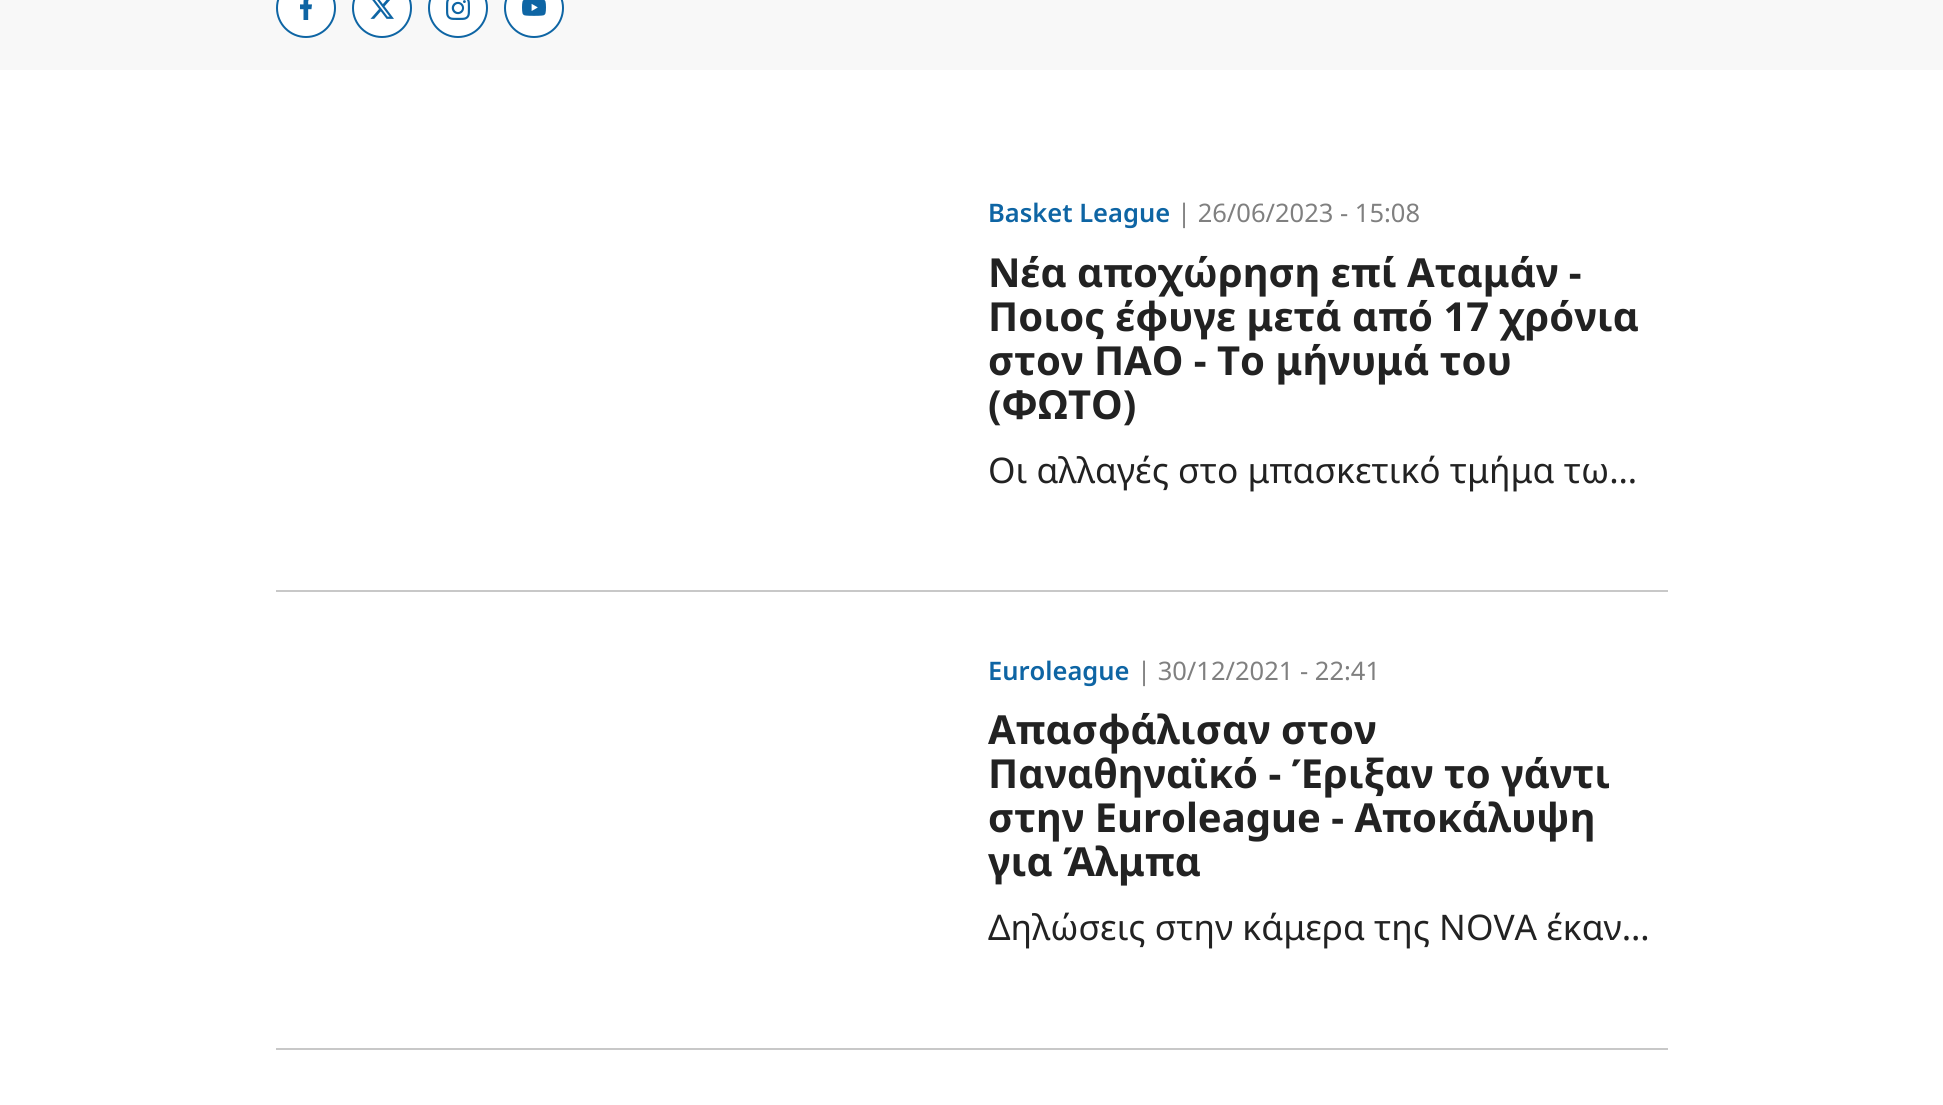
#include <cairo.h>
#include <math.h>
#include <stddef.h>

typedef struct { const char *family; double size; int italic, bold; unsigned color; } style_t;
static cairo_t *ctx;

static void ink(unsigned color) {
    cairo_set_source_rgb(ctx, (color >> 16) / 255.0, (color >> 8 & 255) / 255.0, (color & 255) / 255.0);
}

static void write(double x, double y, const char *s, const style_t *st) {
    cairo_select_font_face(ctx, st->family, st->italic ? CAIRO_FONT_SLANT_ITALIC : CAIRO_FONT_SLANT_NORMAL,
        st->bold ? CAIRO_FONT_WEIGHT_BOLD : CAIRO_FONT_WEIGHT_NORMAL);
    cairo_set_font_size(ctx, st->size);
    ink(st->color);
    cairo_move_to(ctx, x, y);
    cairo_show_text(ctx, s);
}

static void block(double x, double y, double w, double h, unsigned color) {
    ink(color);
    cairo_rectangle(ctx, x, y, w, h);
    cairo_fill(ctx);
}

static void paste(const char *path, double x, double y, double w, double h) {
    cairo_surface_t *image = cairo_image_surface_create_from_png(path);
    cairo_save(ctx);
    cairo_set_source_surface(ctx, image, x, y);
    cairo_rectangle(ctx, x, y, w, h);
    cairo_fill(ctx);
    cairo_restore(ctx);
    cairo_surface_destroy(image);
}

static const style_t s1 = {"Noto Sans SemiBold", 25.5, 0, 0, 0x0e65a4};
static const style_t s2 = {"Noto Sans", 25.5, 0, 0, 0x808080};
static const style_t s3 = {"Noto Sans", 40, 0, 1, 0x222222};
static const style_t s4 = {"Noto Sans", 35.25, 0, 0, 0x222222};

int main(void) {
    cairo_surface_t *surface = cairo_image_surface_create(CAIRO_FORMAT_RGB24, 1943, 1105);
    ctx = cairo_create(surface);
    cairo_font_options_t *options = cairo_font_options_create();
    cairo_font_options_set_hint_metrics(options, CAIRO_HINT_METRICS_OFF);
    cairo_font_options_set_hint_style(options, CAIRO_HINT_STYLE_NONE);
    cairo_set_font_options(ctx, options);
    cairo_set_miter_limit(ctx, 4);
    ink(0xffffff);
    cairo_paint(ctx);
    block(0, 0, 1943, 70, 0xf8f8f8);
    ink(0xffffff);
    cairo_arc(ctx, 306, 8, 29, 0, 2 * M_PI);
    cairo_fill_preserve(ctx);
    ink(0x0e65a4);
    cairo_stroke(ctx);
    paste("pic1.png", 300, 0, 12, 20);
    ink(0xffffff);
    cairo_arc(ctx, 382, 8, 29, 0, 2 * M_PI);
    cairo_fill_preserve(ctx);
    ink(0x0e65a4);
    cairo_stroke(ctx);
    paste("pic2.png", 370, 0, 24, 19);
    ink(0xffffff);
    cairo_arc(ctx, 458, 8, 29, 0, 2 * M_PI);
    cairo_fill_preserve(ctx);
    ink(0x0e65a4);
    cairo_stroke(ctx);
    paste("pic3.png", 446, 0, 24, 20);
    ink(0xffffff);
    cairo_arc(ctx, 534, 8, 29, 0, 2 * M_PI);
    cairo_fill_preserve(ctx);
    ink(0x0e65a4);
    cairo_stroke(ctx);
    paste("pic4.png", 522, 0, 24, 16);
    write(988, 222, "Basket League", &s1);
    write(1177, 222, "| 26/06/2023 - 15:08", &s2);
    write(988, 287, "Νέα αποχώρηση επί Αταμάν -", &s3);
    write(988, 331, "Ποιος έφυγε μετά από 17 χρόνια", &s3);
    write(988, 375, "στον ΠΑΟ - Το μήνυμά του", &s3);
    write(988, 419, "(ΦΩΤΟ)", &s3);
    write(988, 483, "Οι αλλαγές στο μπασκετικό τμήμα τω…", &s4);
    block(276, 590, 1392, 2, 0xc8c8c8);
    write(988, 680, "Euroleague", &s1);
    write(1137, 680, "| 30/12/2021 - 22:41", &s2);
    write(988, 744, "Απασφάλισαν στον", &s3);
    write(988, 788, "Παναθηναϊκό - Έριξαν το γάντι", &s3);
    write(988, 832, "στην Euroleague - Αποκάλυψη", &s3);
    write(988, 876, "για Άλμπα", &s3);
    write(988, 940, "Δηλώσεις στην κάμερα της NOVA έκαν…", &s4);
    block(276, 1048, 1392, 2, 0xc8c8c8);
    cairo_surface_write_to_png(surface, "screenshot.png");
    cairo_font_options_destroy(options);
    cairo_destroy(ctx);
    cairo_surface_destroy(surface);
    return 0;
}
